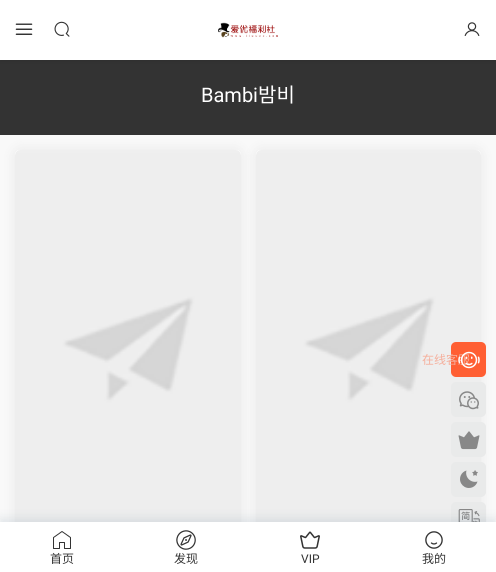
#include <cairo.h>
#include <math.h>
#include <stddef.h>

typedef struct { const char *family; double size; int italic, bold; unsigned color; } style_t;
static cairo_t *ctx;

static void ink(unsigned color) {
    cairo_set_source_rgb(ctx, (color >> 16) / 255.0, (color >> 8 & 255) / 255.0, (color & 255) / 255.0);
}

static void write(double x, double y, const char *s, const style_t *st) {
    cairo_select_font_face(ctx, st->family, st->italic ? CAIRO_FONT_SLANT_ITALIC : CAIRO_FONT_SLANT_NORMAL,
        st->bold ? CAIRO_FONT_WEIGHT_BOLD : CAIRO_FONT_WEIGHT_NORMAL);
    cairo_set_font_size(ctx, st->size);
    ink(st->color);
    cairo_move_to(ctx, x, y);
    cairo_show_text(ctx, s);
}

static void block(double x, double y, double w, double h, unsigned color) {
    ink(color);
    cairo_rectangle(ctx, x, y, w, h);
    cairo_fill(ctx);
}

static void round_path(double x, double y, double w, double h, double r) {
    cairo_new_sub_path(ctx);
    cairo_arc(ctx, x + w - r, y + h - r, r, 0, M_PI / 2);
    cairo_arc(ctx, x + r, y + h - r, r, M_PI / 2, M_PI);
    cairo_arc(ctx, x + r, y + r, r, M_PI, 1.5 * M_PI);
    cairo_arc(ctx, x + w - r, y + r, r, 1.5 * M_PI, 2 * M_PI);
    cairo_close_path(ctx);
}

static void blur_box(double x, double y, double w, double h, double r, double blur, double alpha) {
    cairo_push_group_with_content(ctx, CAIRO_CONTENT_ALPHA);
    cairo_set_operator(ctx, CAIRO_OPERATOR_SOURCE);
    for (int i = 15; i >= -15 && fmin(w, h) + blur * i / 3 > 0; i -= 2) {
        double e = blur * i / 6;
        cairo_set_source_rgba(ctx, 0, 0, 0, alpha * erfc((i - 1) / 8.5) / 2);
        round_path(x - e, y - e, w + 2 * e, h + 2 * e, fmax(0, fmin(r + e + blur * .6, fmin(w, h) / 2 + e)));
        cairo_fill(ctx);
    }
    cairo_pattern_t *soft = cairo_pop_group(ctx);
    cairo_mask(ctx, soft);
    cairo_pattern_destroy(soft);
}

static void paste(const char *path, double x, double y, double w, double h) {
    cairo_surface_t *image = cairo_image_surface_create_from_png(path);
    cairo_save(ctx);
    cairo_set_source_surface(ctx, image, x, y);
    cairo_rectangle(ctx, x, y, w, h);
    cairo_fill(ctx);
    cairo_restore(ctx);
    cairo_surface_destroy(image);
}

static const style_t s1 = {"Roboto", 20, 0, 0, 0xffffff};
static const style_t s2 = {"Noto Sans CJK SC", 20, 0, 0, 0xffffff};
static const style_t s3 = {"Noto Sans CJK SC", 12, 0, 0, 0xf5af9c};
static const style_t s4 = {"Noto Sans CJK SC", 12, 0, 0, 0x333333};
static const style_t s5 = {"Roboto", 12, 0, 0, 0x333333};

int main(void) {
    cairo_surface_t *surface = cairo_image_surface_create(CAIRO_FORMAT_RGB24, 496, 572);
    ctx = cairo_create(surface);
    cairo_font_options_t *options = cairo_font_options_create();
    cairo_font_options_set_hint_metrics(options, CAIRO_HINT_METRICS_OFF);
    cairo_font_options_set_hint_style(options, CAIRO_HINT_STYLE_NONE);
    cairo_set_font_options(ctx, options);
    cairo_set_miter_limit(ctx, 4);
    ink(0xf9f9f9);
    cairo_paint(ctx);
    block(0, 60, 496, 75, 0x333333);
    ink(0x000000);
    blur_box(0, 1, 496, 60, 0, 2.5, 0.1);
    block(0, 0, 496, 60, 0xffffff);
    paste("pic1.png", 15, 23, 18, 12);
    paste("pic2.png", 54, 21, 16, 16);
    paste("pic3.png", 218, 22, 60, 16);
    paste("pic4.png", 464, 22, 16, 14);
    write(201, 102, "Bambi", &s1);
    write(258, 102, "밤비", &s2);
    ink(0x000000);
    blur_box(15, 150, 226, 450, 5, 7.5, 0.07);
    ink(0xffffff);
    cairo_new_path(ctx);
    cairo_move_to(ctx, 20, 150);
    cairo_line_to(ctx, 236, 150);
    cairo_curve_to(ctx, 239, 150, 241, 152, 241, 155);
    cairo_line_to(ctx, 241, 544);
    cairo_line_to(ctx, 15, 544);
    cairo_line_to(ctx, 15, 155);
    cairo_curve_to(ctx, 15, 152, 17, 150, 20, 150);
    cairo_close_path(ctx);
    cairo_fill(ctx);
    paste("pic5.png", 15, 150, 226, 372);
    ink(0x000000);
    blur_box(256, 150, 225, 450, 5, 7.5, 0.07);
    ink(0xffffff);
    cairo_new_path(ctx);
    cairo_move_to(ctx, 261, 150);
    cairo_line_to(ctx, 476, 150);
    cairo_curve_to(ctx, 479, 150, 481, 152, 481, 155);
    cairo_line_to(ctx, 481, 544);
    cairo_line_to(ctx, 256, 544);
    cairo_line_to(ctx, 256, 155);
    cairo_curve_to(ctx, 256, 152, 258, 150, 261, 150);
    cairo_close_path(ctx);
    cairo_fill(ctx);
    paste("pic6.png", 256, 150, 225, 372);
    ink(0xff5f33);
    round_path(451, 342, 35, 35, 5);
    cairo_fill(ctx);
    write(422, 364, "在线客服", &s3);
    paste("pic7.png", 458, 351, 22, 18);
    ink(0xe9eaea);
    round_path(451, 382, 35, 35, 5);
    cairo_fill(ctx);
    paste("pic8.png", 459, 391, 20, 19);
    round_path(451, 422, 35, 35, 5);
    cairo_fill(ctx);
    paste("pic9.png", 458, 431, 22, 19);
    round_path(451, 462, 35, 35, 5);
    cairo_fill(ctx);
    paste("pic10.png", 460, 470, 18, 18);
    round_path(451, 502, 35, 35, 5);
    cairo_fill(ctx);
    paste("pic11.png", 458, 509, 22, 13);
    ink(0x113a5d);
    blur_box(0, 518, 496, 50, 0, 5, 0.1);
    block(0, 522, 496, 50, 0xffffff);
    paste("pic12.png", 53, 531, 18, 18);
    write(50, 563, "首页", &s4);
    paste("pic13.png", 176, 530, 20, 20);
    write(174, 563, "发现", &s4);
    paste("pic14.png", 300, 531, 20, 18);
    write(301, 563, "VIP", &s5);
    paste("pic15.png", 425, 531, 18, 18);
    write(422, 563, "我的", &s4);
    cairo_surface_write_to_png(surface, "screenshot.png");
    cairo_font_options_destroy(options);
    cairo_destroy(ctx);
    cairo_surface_destroy(surface);
    return 0;
}
